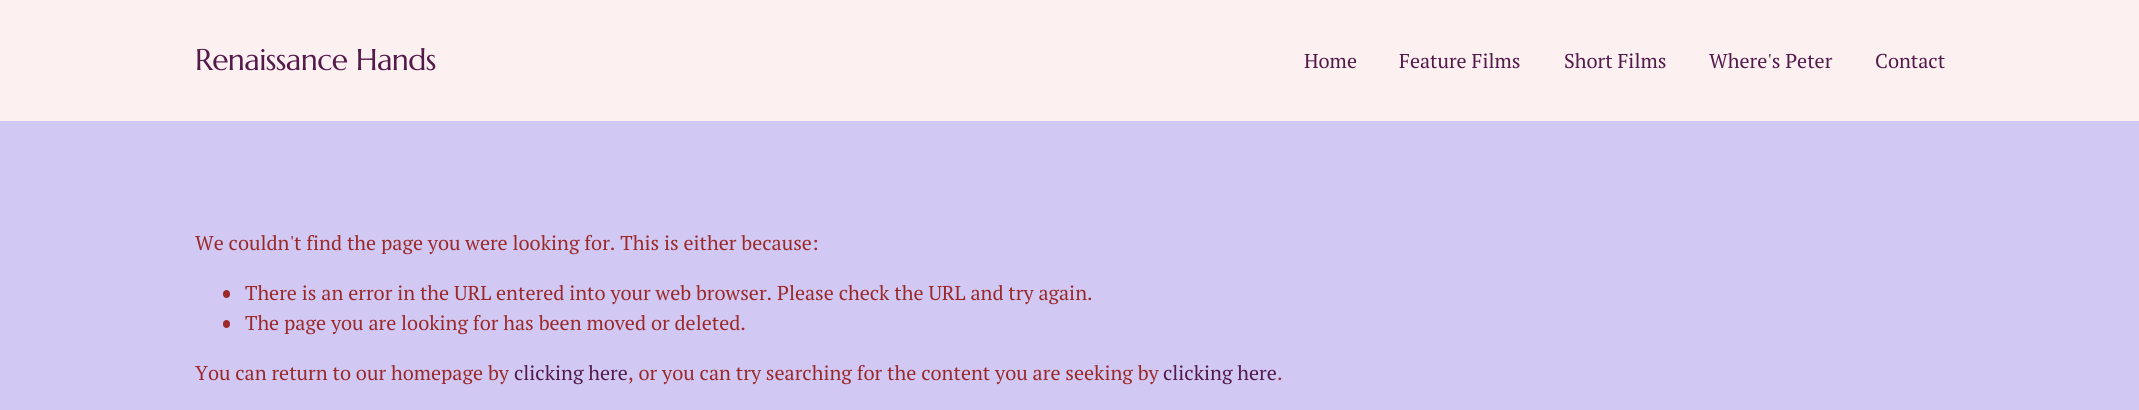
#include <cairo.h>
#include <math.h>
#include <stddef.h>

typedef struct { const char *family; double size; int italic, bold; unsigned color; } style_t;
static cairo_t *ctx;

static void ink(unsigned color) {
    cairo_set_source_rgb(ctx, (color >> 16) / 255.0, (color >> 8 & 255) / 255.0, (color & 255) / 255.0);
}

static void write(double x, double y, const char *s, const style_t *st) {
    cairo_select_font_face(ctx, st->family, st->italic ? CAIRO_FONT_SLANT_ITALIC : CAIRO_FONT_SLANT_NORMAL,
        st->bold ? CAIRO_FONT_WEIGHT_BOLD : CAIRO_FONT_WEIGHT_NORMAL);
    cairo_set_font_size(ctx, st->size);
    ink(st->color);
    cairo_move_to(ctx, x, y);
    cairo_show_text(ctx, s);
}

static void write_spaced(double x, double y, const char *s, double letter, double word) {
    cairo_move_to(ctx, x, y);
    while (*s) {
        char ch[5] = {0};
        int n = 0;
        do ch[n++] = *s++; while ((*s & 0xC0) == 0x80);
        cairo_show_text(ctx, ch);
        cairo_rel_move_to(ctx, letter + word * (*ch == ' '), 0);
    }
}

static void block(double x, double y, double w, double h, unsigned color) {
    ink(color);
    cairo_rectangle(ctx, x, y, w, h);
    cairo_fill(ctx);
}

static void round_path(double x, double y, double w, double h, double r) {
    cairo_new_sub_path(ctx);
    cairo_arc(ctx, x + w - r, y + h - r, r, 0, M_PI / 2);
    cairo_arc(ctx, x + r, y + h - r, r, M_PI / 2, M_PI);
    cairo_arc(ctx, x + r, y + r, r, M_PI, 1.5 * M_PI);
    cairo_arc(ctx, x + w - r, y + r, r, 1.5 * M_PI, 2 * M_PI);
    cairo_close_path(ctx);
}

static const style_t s1 = {"PT Serif", 20, 0, 0, 0x531a4a};
static const style_t s2 = {"PT Serif", 20, 0, 0, 0x9b2929};

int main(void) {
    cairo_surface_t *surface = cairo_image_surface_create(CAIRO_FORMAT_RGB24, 2139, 410);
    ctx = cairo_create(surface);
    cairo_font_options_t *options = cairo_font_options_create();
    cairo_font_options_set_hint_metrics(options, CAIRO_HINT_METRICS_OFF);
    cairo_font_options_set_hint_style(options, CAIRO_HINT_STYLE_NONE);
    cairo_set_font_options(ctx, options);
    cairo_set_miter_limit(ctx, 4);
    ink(0xd1c8f4);
    cairo_paint(ctx);
    block(0, 0, 2139, 121, 0xfcf0f0);
    cairo_select_font_face(ctx, "Marcellus", CAIRO_FONT_SLANT_NORMAL, CAIRO_FONT_WEIGHT_NORMAL);
    cairo_set_font_size(ctx, 30);
    ink(0x531a4a);
    write_spaced(195, 70, "Renaissance Hands", -0.6, 0);
    write(1304, 68, "Home", &s1);
    write(1399, 68, "Feature Films", &s1);
    write(1564, 68, "Short Films", &s1);
    write(1709, 68, "Where's Peter", &s1);
    write(1875, 68, "Contact", &s1);
    write(195, 250, "We couldn't find the page you were looking for. This is either because:", &s2);
    round_path(223, 290, 7, 8, 3.5);
    cairo_fill(ctx);
    write(245, 300, "There is an error in the URL entered into your web browser. Please check the URL and try again.", &s2);
    round_path(223, 320, 7, 8, 3.5);
    cairo_fill(ctx);
    write(245, 330, "The page you are looking for has been moved or deleted.", &s2);
    write(195, 380, "You can return to our homepage by", &s2);
    write(514, 380, "clicking here", &s1);
    write(628, 380, ", or you can try searching for the content you are seeking by", &s2);
    write(1163, 380, "clicking here", &s1);
    write(1277, 380, ".", &s2);
    cairo_surface_write_to_png(surface, "screenshot.png");
    cairo_font_options_destroy(options);
    cairo_destroy(ctx);
    cairo_surface_destroy(surface);
    return 0;
}
